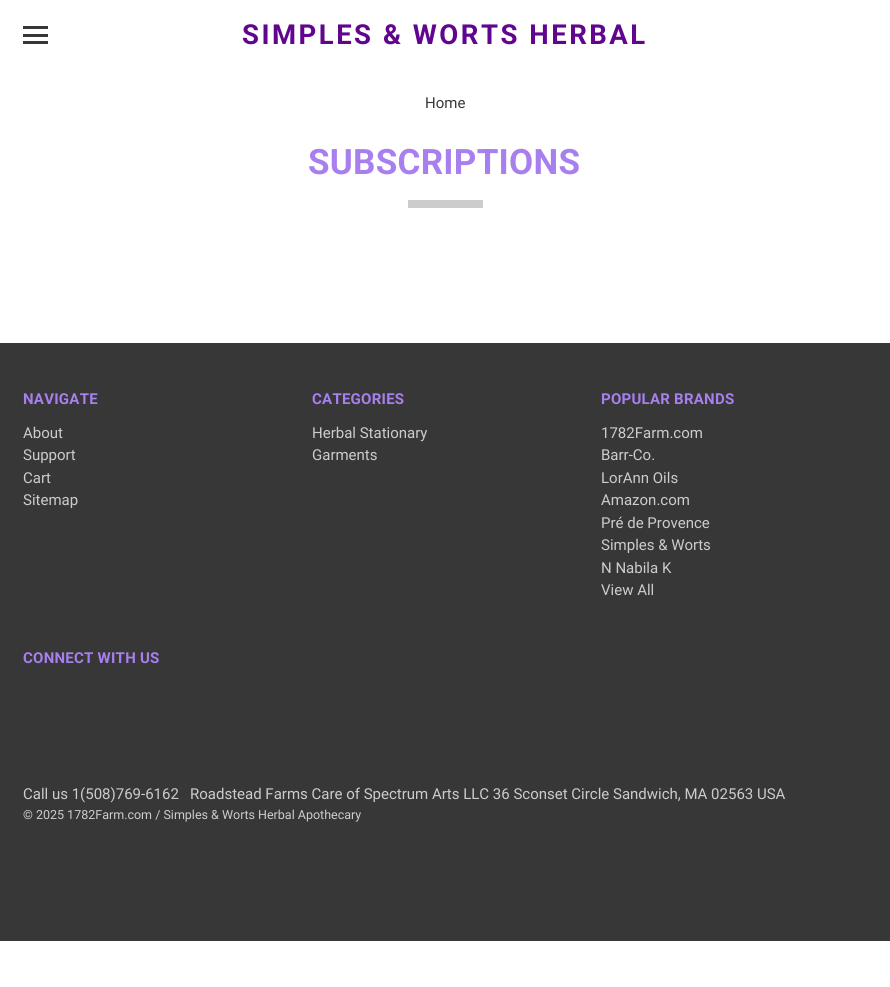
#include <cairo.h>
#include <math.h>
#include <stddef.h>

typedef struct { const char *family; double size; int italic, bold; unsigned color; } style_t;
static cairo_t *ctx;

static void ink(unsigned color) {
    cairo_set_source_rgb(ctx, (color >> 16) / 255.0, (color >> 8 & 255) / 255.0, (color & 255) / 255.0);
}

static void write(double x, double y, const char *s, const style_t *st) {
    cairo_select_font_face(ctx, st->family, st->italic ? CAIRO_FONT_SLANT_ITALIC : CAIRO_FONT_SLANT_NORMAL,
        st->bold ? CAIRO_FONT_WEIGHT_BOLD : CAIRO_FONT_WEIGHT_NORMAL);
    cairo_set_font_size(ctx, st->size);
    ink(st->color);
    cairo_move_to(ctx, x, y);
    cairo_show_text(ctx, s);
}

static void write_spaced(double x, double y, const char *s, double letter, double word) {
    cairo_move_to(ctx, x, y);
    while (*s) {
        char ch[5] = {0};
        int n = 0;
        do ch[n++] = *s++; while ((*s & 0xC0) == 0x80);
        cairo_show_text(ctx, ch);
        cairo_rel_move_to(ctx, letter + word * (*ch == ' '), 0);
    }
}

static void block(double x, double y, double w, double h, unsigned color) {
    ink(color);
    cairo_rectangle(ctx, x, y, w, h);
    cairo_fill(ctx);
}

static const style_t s1 = {"Roboto", 15, 0, 0, 0x373737};
static const style_t s2 = {"Roboto", 15, 0, 0, 0xcccccc};
static const style_t s3 = {"Roboto", 12.5, 0, 0, 0xcccccc};

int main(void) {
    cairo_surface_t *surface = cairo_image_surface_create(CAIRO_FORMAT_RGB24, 890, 987);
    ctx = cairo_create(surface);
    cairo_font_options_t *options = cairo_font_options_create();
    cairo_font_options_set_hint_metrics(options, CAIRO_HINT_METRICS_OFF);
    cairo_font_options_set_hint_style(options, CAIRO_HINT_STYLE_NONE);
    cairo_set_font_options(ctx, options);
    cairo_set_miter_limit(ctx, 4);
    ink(0xffffff);
    cairo_paint(ctx);
    block(23, 34, 25, 3, 0x373737);
    block(23, 26, 25, 3, 0x373737);
    block(23, 41, 25, 3, 0x373737);
    cairo_select_font_face(ctx, "Roboto", CAIRO_FONT_SLANT_NORMAL, CAIRO_FONT_WEIGHT_BOLD);
    cairo_set_font_size(ctx, 27.5);
    ink(0x61058f);
    write_spaced(242, 44, "SIMPLES & WORTS HERBAL", 2.5, 0);
    write(425, 108, "Home", &s1);
    cairo_select_font_face(ctx, "Roboto", CAIRO_FONT_SLANT_NORMAL, CAIRO_FONT_WEIGHT_BOLD);
    cairo_set_font_size(ctx, 35);
    ink(0xa87fee);
    write_spaced(308, 174, "SUBSCRIPTIONS", 0.25, 0);
    block(408, 200, 75, 8, 0xcccccc);
    block(0, 343, 890, 598, 0x373737);
    cairo_set_font_size(ctx, 15);
    ink(0xa87fee);
    write_spaced(23, 404, "NAVIGATE", 0.25, 0);
    write(23, 438, "About", &s2);
    write(23, 460, "Support", &s2);
    write(23, 483, "Cart", &s2);
    write(23, 505, "Sitemap", &s2);
    cairo_select_font_face(ctx, "Roboto", CAIRO_FONT_SLANT_NORMAL, CAIRO_FONT_WEIGHT_BOLD);
    ink(0xa87fee);
    write_spaced(312, 404, "CATEGORIES", 0.25, 0);
    write(312, 438, "Herbal Stationary", &s2);
    write(312, 460, "Garments", &s2);
    cairo_select_font_face(ctx, "Roboto", CAIRO_FONT_SLANT_NORMAL, CAIRO_FONT_WEIGHT_BOLD);
    ink(0xa87fee);
    write_spaced(601, 404, "POPULAR BRANDS", 0.25, 0);
    write(601, 438, "1782Farm.com", &s2);
    write(601, 460, "Barr-Co.", &s2);
    write(601, 483, "LorAnn Oils", &s2);
    write(601, 505, "Amazon.com", &s2);
    write(601, 528, "Pré de Provence", &s2);
    write(601, 550, "Simples & Worts", &s2);
    write(601, 573, "N Nabila K", &s2);
    write(601, 595, "View All", &s2);
    cairo_select_font_face(ctx, "Roboto", CAIRO_FONT_SLANT_NORMAL, CAIRO_FONT_WEIGHT_BOLD);
    ink(0xa87fee);
    write_spaced(23, 663, "CONNECT WITH US", 0.25, 0);
    write(23, 799, "Call us 1(508)769-6162", &s2);
    write(190, 799, "Roadstead Farms Care of Spectrum Arts LLC 36 Sconset Circle Sandwich, MA 02563 USA", &s2);
    write(23, 819, "© 2025 1782Farm.com / Simples & Worts Herbal Apothecary", &s3);
    cairo_surface_write_to_png(surface, "screenshot.png");
    cairo_font_options_destroy(options);
    cairo_destroy(ctx);
    cairo_surface_destroy(surface);
    return 0;
}
